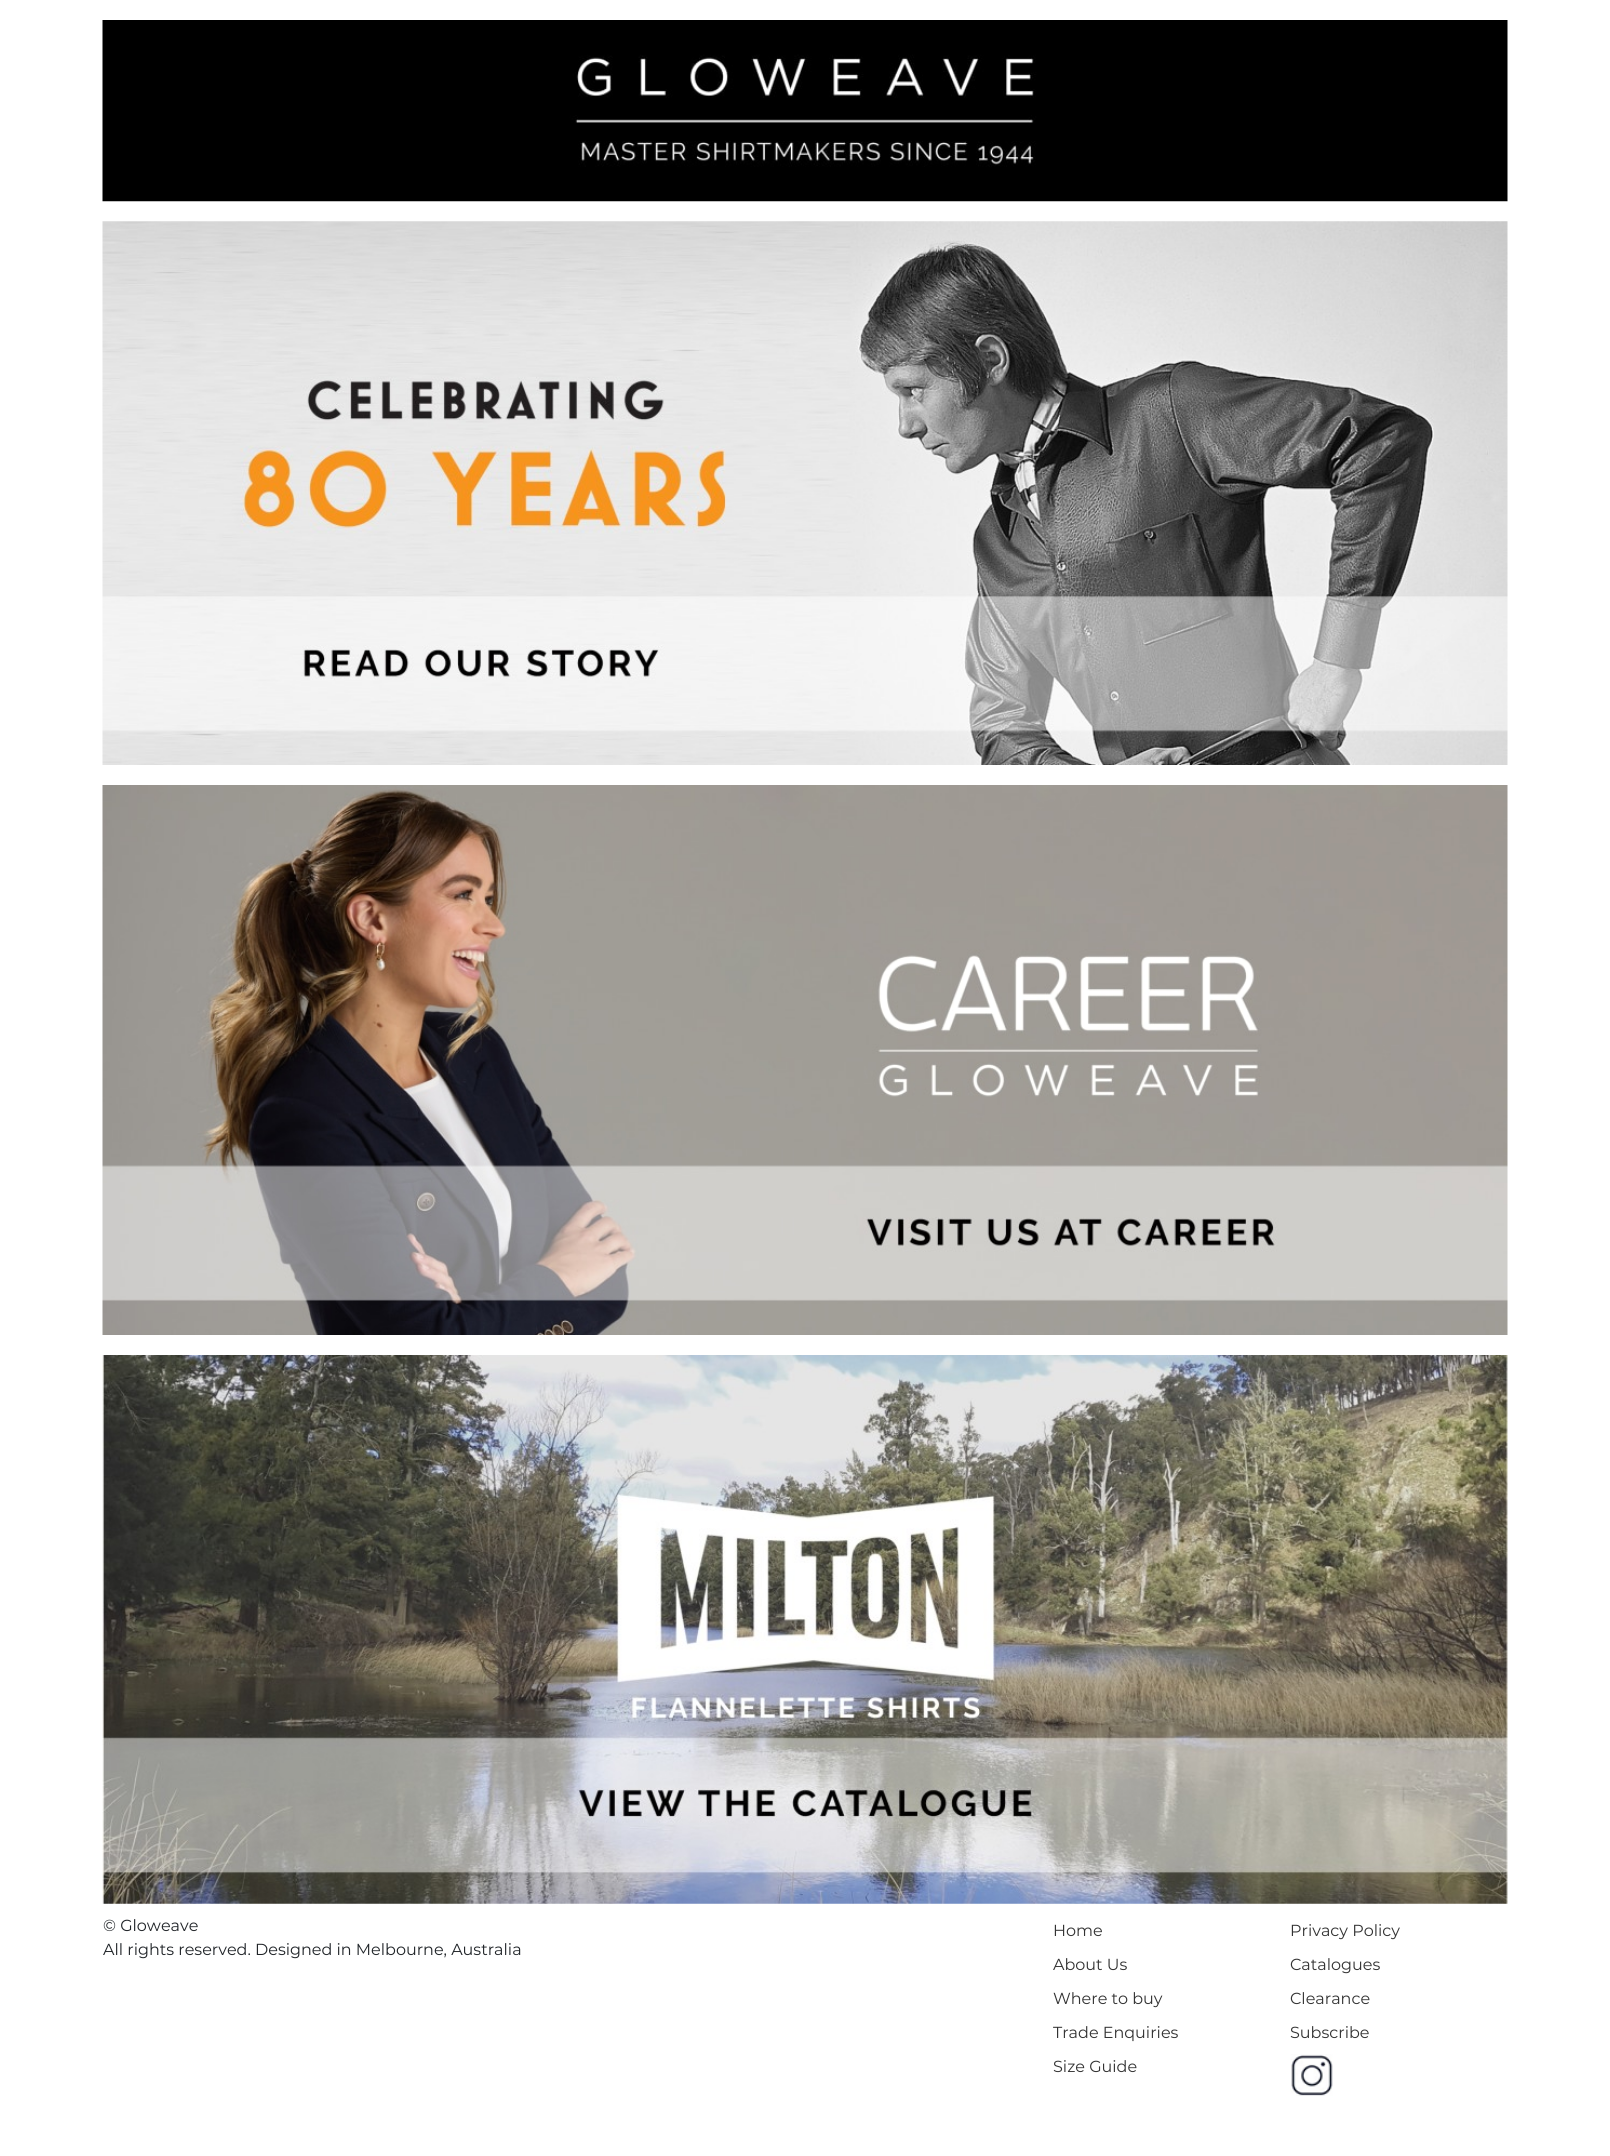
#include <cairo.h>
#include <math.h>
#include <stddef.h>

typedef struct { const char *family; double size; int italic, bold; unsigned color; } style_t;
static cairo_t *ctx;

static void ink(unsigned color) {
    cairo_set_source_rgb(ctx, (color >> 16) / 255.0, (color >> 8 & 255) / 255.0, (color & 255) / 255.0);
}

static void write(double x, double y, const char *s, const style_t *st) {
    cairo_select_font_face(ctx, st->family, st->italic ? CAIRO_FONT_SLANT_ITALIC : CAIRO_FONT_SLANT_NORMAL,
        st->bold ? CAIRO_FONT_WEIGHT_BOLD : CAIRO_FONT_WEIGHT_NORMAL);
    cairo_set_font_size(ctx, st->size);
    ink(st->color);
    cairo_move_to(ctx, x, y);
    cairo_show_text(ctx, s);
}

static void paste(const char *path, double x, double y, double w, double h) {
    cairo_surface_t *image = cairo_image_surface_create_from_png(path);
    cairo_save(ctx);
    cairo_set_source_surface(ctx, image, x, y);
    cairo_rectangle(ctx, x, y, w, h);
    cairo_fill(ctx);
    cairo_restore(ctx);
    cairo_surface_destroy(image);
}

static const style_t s1 = {"Montserrat", 16, 0, 0, 0x212529};
static const style_t s2 = {"Montserrat", 16, 0, 0, 0x333333};

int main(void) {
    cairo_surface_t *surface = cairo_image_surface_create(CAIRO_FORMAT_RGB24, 1610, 2156);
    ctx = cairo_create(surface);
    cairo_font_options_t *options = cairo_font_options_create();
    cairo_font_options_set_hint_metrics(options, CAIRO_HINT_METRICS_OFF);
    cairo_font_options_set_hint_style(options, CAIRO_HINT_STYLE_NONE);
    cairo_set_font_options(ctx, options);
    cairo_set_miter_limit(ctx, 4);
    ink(0xffffff);
    cairo_paint(ctx);
    paste("pic1.png", 102, 20, 1406, 182);
    paste("pic2.png", 102, 221, 1406, 544);
    paste("pic3.png", 102, 785, 1406, 550);
    paste("pic4.png", 102, 1355, 1406, 549);
    write(103, 1931, "© Gloweave", &s1);
    write(103, 1955, "All rights reserved. Designed in Melbourne, Australia", &s1);
    write(1053, 1936, "Home", &s2);
    write(1053, 1970, "About Us", &s2);
    write(1053, 2004, "Where to buy", &s2);
    write(1053, 2038, "Trade Enquiries", &s2);
    write(1053, 2072, "Size Guide", &s2);
    write(1290, 1936, "Privacy Policy", &s2);
    write(1290, 1970, "Catalogues", &s2);
    write(1290, 2004, "Clearance", &s2);
    write(1290, 2038, "Subscribe", &s2);
    paste("pic5.png", 1290, 2054, 43, 42);
    cairo_surface_write_to_png(surface, "screenshot.png");
    cairo_font_options_destroy(options);
    cairo_destroy(ctx);
    cairo_surface_destroy(surface);
    return 0;
}
